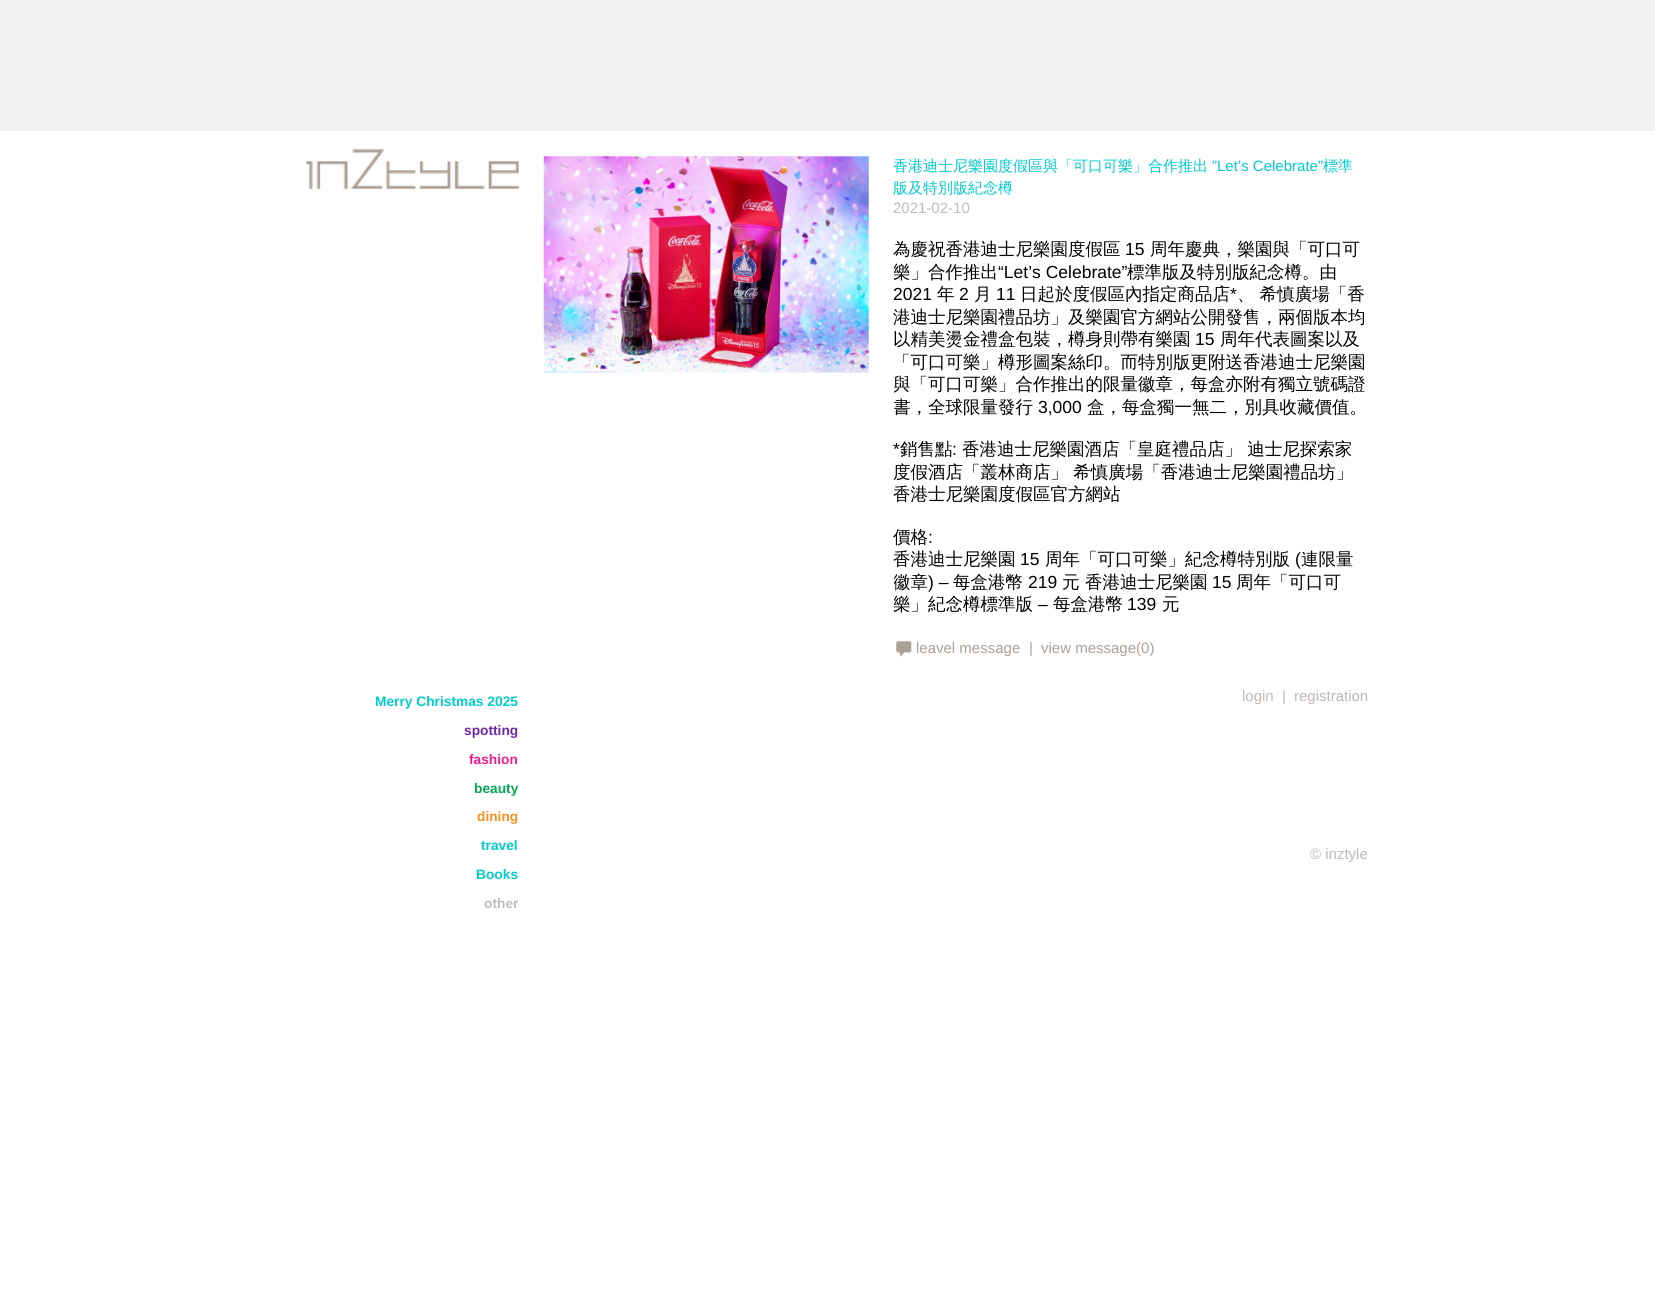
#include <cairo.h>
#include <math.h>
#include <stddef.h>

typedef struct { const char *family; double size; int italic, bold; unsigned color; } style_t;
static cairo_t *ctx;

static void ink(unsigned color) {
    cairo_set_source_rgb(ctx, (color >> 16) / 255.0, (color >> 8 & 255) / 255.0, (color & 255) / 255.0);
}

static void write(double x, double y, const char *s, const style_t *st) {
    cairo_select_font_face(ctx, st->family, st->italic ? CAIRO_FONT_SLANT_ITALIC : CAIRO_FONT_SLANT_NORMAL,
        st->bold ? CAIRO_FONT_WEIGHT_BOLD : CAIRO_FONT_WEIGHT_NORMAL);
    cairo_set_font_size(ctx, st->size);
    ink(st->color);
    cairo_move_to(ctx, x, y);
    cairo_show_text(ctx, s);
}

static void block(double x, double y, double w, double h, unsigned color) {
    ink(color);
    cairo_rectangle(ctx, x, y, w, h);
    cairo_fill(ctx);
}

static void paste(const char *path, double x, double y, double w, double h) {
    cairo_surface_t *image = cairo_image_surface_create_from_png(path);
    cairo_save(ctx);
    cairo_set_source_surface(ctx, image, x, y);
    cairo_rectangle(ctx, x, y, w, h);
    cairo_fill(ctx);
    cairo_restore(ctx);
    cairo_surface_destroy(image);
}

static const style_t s1 = {"WenQuanYi Zen Hei Medium", 15, 0, 0, 0x00cccc};
static const style_t s2 = {"Liberation Sans", 15, 0, 0, 0x00cccc};
static const style_t s3 = {"Liberation Sans", 15, 0, 0, 0xbbbbbb};
static const style_t s4 = {"WenQuanYi Zen Hei Medium", 17.5, 0, 0, 0x000000};
static const style_t s5 = {"Liberation Sans", 17.5, 0, 0, 0x000000};
static const style_t s6 = {"Liberation Sans", 15, 0, 0, 0xada097};
static const style_t s7 = {"Liberation Sans", 13.75, 0, 1, 0x00cccc};
static const style_t s8 = {"Liberation Sans", 13.75, 0, 1, 0x6d28aa};
static const style_t s9 = {"Liberation Sans", 13.75, 0, 1, 0xed1c91};
static const style_t s10 = {"Liberation Sans", 13.75, 0, 1, 0x00aa51};
static const style_t s11 = {"Liberation Sans", 13.75, 0, 1, 0xf8901f};
static const style_t s12 = {"Liberation Sans", 13.75, 0, 1, 0xbbbbbb};
static const style_t s13 = {"Liberation Sans", 15, 0, 0, 0xc1b8b3};

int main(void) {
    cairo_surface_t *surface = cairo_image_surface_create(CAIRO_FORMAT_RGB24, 1655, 1309);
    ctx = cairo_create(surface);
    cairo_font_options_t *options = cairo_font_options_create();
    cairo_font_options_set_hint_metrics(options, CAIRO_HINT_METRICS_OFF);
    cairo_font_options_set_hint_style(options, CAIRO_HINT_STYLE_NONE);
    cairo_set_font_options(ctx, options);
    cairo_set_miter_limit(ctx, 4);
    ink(0xffffff);
    cairo_paint(ctx);
    block(0, 0, 1655, 131, 0xf3f3f5);
    paste("pic1.png", 306, 148, 214, 43);
    paste("pic2.png", 543, 156, 326, 217);
    write(893, 171, "香港迪士尼樂園度假區與「可口可樂」合作推出", &s1);
    write(1212, 171, "”Let’s Celebrate”", &s2);
    write(1323, 171, "標準", &s1);
    write(893, 193, "版及特別版紀念樽", &s1);
    write(893, 213, "2021-02-10", &s3);
    write(893, 255, "為慶祝香港迪士尼樂園度假區", &s4);
    write(1125, 255, "15", &s5);
    write(1150, 255, "周年慶典，樂園與「可口可", &s4);
    cairo_save(ctx);
    cairo_rectangle(ctx, 894, 156, 475, 507);
    cairo_clip(ctx);
    write(893, 278, "樂」合作推出", &s4);
    cairo_restore(ctx);
    write(998, 278, "“Let’s Celebrate”", &s5);
    write(1127, 278, "標準版及特別版紀念樽。由", &s4);
    write(893, 300, "2021", &s5);
    write(937, 300, "年", &s4);
    write(959, 300, "2", &s5);
    write(974, 300, "月", &s4);
    write(996, 300, "11", &s5);
    write(1020, 300, "日起於度假區內指定商品店", &s4);
    write(1230, 300, "*", &s5);
    write(1237, 300, "、 希慎廣場「香", &s4);
    write(893, 323, "港迪士尼樂園禮品坊」及樂園官方網站公開發售，兩個版本均", &s4);
    write(893, 345, "以精美燙金禮盒包裝，樽身則帶有樂園", &s4);
    write(1195, 345, "15", &s5);
    write(1220, 345, "周年代表圖案以及", &s4);
    write(893, 368, "「可口可樂」樽形圖案絲印。而特別版更附送香港迪士尼樂園", &s4);
    cairo_save(ctx);
    cairo_rectangle(ctx, 894, 156, 475, 507);
    cairo_clip(ctx);
    write(893, 390, "與「可口可樂」合作推出的限量徽章，每盒亦附有獨立號碼證", &s4);
    write(893, 413, "書，全球限量發行", &s4);
    cairo_restore(ctx);
    write(1038, 413, "3,000", &s5);
    write(1087, 413, "盒，每盒獨一無二，別具收藏價值。", &s4);
    write(893, 455, "*", &s5);
    write(900, 455, "銷售點", &s4);
    write(952, 455, ":", &s5);
    write(962, 455, "香港迪士尼樂園酒店「皇庭禮品店」 迪士尼探索家", &s4);
    write(893, 478, "度假酒店「叢林商店」 希慎廣場「香港迪士尼樂園禮品坊」", &s4);
    write(893, 500, "香港士尼樂園度假區官方網站", &s4);
    write(893, 543, "價格", &s4);
    write(928, 543, ":", &s5);
    write(893, 565, "香港迪士尼樂園", &s4);
    write(1020, 565, "15", &s5);
    write(1045, 565, "周年「可口可樂」紀念樽特別版", &s4);
    write(1295, 565, "(", &s5);
    write(1301, 565, "連限量", &s4);
    cairo_save(ctx);
    cairo_rectangle(ctx, 894, 156, 475, 507);
    cairo_clip(ctx);
    write(893, 588, "徽章", &s4);
    cairo_restore(ctx);
    write(928, 588, ") –", &s5);
    write(953, 588, "每盒港幣", &s4);
    write(1028, 588, "219", &s5);
    write(1062, 588, "元", &s4);
    write(1085, 588, "香港迪士尼樂園", &s4);
    write(1212, 588, "15", &s5);
    write(1236, 588, "周年「可口可", &s4);
    cairo_save(ctx);
    cairo_rectangle(ctx, 894, 156, 475, 507);
    cairo_clip(ctx);
    write(893, 610, "樂」紀念樽標準版", &s4);
    cairo_restore(ctx);
    write(1038, 610, "–", &s5);
    write(1053, 610, "每盒港幣", &s4);
    write(1127, 610, "139", &s5);
    write(1162, 610, "元", &s4);
    paste("pic3.png", 895, 640, 17, 17);
    write(916, 653, "leavel message", &s6);
    write(1029, 653, "|", &s6);
    write(1041, 653, "view message(0)", &s6);
    write(375, 706, "Merry Christmas 2025", &s7);
    write(464, 735, "spotting", &s8);
    write(469, 764, "fashion", &s9);
    write(474, 793, "beauty", &s10);
    write(477, 821, "dining", &s11);
    write(481, 850, "travel", &s7);
    write(476, 879, "Books", &s7);
    write(484, 908, "other", &s12);
    write(1242, 701, "login", &s13);
    write(1282, 701, "|", &s13);
    write(1294, 701, "registration", &s13);
    write(1310, 859, "© inztyle", &s13);
    cairo_surface_write_to_png(surface, "screenshot.png");
    cairo_font_options_destroy(options);
    cairo_destroy(ctx);
    cairo_surface_destroy(surface);
    return 0;
}
